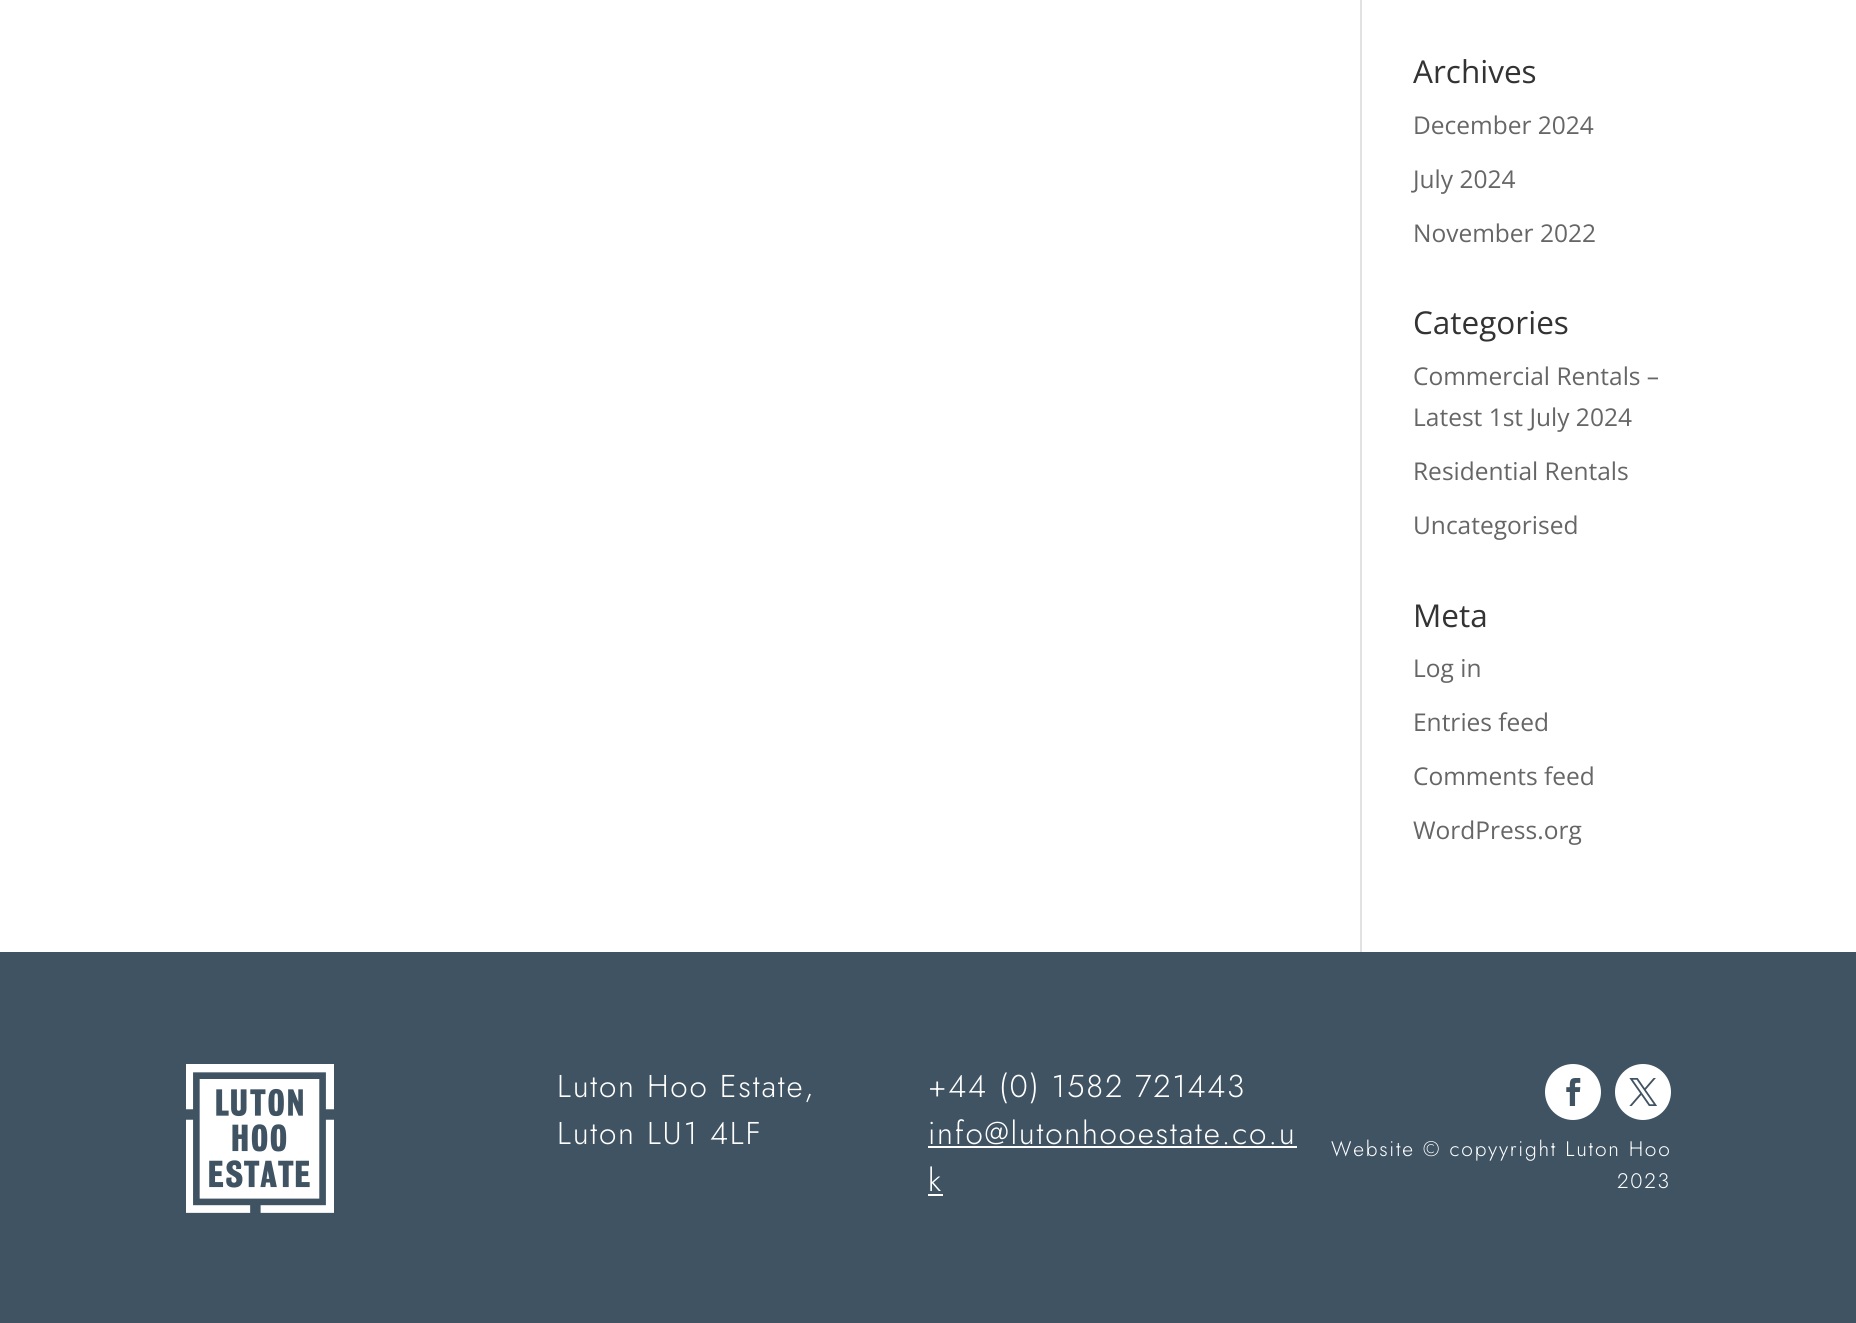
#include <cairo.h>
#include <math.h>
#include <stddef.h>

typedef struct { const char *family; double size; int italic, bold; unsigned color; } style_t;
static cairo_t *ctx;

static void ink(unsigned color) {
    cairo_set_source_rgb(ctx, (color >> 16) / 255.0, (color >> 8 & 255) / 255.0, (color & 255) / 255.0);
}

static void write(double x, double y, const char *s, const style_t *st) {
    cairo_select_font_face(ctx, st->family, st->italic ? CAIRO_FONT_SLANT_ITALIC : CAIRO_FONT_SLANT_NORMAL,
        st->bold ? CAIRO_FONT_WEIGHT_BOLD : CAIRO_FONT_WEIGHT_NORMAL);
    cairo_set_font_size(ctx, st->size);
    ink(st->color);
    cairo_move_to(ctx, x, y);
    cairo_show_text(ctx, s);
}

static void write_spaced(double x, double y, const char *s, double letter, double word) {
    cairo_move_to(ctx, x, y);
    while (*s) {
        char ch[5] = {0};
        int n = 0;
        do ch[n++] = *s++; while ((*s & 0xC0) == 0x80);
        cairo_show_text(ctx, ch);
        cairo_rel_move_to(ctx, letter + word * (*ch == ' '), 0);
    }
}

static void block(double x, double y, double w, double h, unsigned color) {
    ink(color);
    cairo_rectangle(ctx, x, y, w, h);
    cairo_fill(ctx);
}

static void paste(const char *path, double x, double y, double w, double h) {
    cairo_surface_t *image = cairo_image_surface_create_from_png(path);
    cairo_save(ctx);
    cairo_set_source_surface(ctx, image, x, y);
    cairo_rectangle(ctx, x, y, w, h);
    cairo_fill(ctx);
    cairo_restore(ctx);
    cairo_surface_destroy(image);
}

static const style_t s1 = {"Open Sans", 31.5, 0, 0, 0x333333};
static const style_t s2 = {"Open Sans", 24.5, 0, 0, 0x666666};

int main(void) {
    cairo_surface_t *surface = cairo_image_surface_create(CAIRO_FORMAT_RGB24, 1856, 1323);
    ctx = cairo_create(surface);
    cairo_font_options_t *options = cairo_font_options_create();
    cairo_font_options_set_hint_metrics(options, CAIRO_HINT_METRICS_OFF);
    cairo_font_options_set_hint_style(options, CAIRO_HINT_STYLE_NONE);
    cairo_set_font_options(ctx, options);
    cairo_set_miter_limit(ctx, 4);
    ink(0xffffff);
    cairo_paint(ctx);
    block(1360, 0, 2, 952, 0xe2e2e2);
    write(1413, 83, "Archives", &s1);
    write(1413, 134, "December 2024", &s2);
    write(1413, 188, "July 2024", &s2);
    write(1413, 242, "November 2022", &s2);
    write(1413, 334, "Categories", &s1);
    write(1413, 385, "Commercial Rentals –", &s2);
    write(1413, 426, "Latest 1st July 2024", &s2);
    write(1413, 480, "Residential Rentals", &s2);
    write(1413, 534, "Uncategorised", &s2);
    write(1413, 627, "Meta", &s1);
    write(1413, 677, "Log in", &s2);
    write(1413, 731, "Entries feed", &s2);
    write(1413, 785, "Comments feed", &s2);
    write(1413, 839, "WordPress.org", &s2);
    block(0, 952, 1856, 371, 0x405363);
    paste("pic1.png", 186, 1064, 148, 149);
    cairo_select_font_face(ctx, "Jost Light", CAIRO_FONT_SLANT_NORMAL, CAIRO_FONT_WEIGHT_NORMAL);
    cairo_set_font_size(ctx, 31.5);
    ink(0xffffff);
    write_spaced(557, 1097, "Luton Hoo Estate,", 1.75, 0);
    write_spaced(557, 1144, "Luton LU1 4LF", 1.75, 0);
    write_spaced(928, 1097, "+44 (0) 1582 721443", 1.75, 0);
    write_spaced(928, 1144, "info@lutonhooestate.co.u", 1.75, 0);
    block(928, 1146, 369, 2, 0xffffff);
    write_spaced(928, 1191, "k", 1.75, 0);
    block(928, 1194, 15, 2, 0xffffff);
    cairo_new_path(ctx);
    cairo_arc(ctx, 1573, 1092, 28, 0, 2 * M_PI);
    cairo_fill(ctx);
    paste("pic2.png", 1566, 1078, 15, 28);
    cairo_arc(ctx, 1643, 1092, 28, 0, 2 * M_PI);
    cairo_fill(ctx);
    paste("pic3.png", 1629, 1078, 29, 28);
    cairo_set_font_size(ctx, 21);
    write_spaced(1331, 1156, "Website © copyyright Luton Hoo", 1.75, 0);
    write_spaced(1617, 1188, "2023", 1.75, 0);
    cairo_surface_write_to_png(surface, "screenshot.png");
    cairo_font_options_destroy(options);
    cairo_destroy(ctx);
    cairo_surface_destroy(surface);
    return 0;
}
